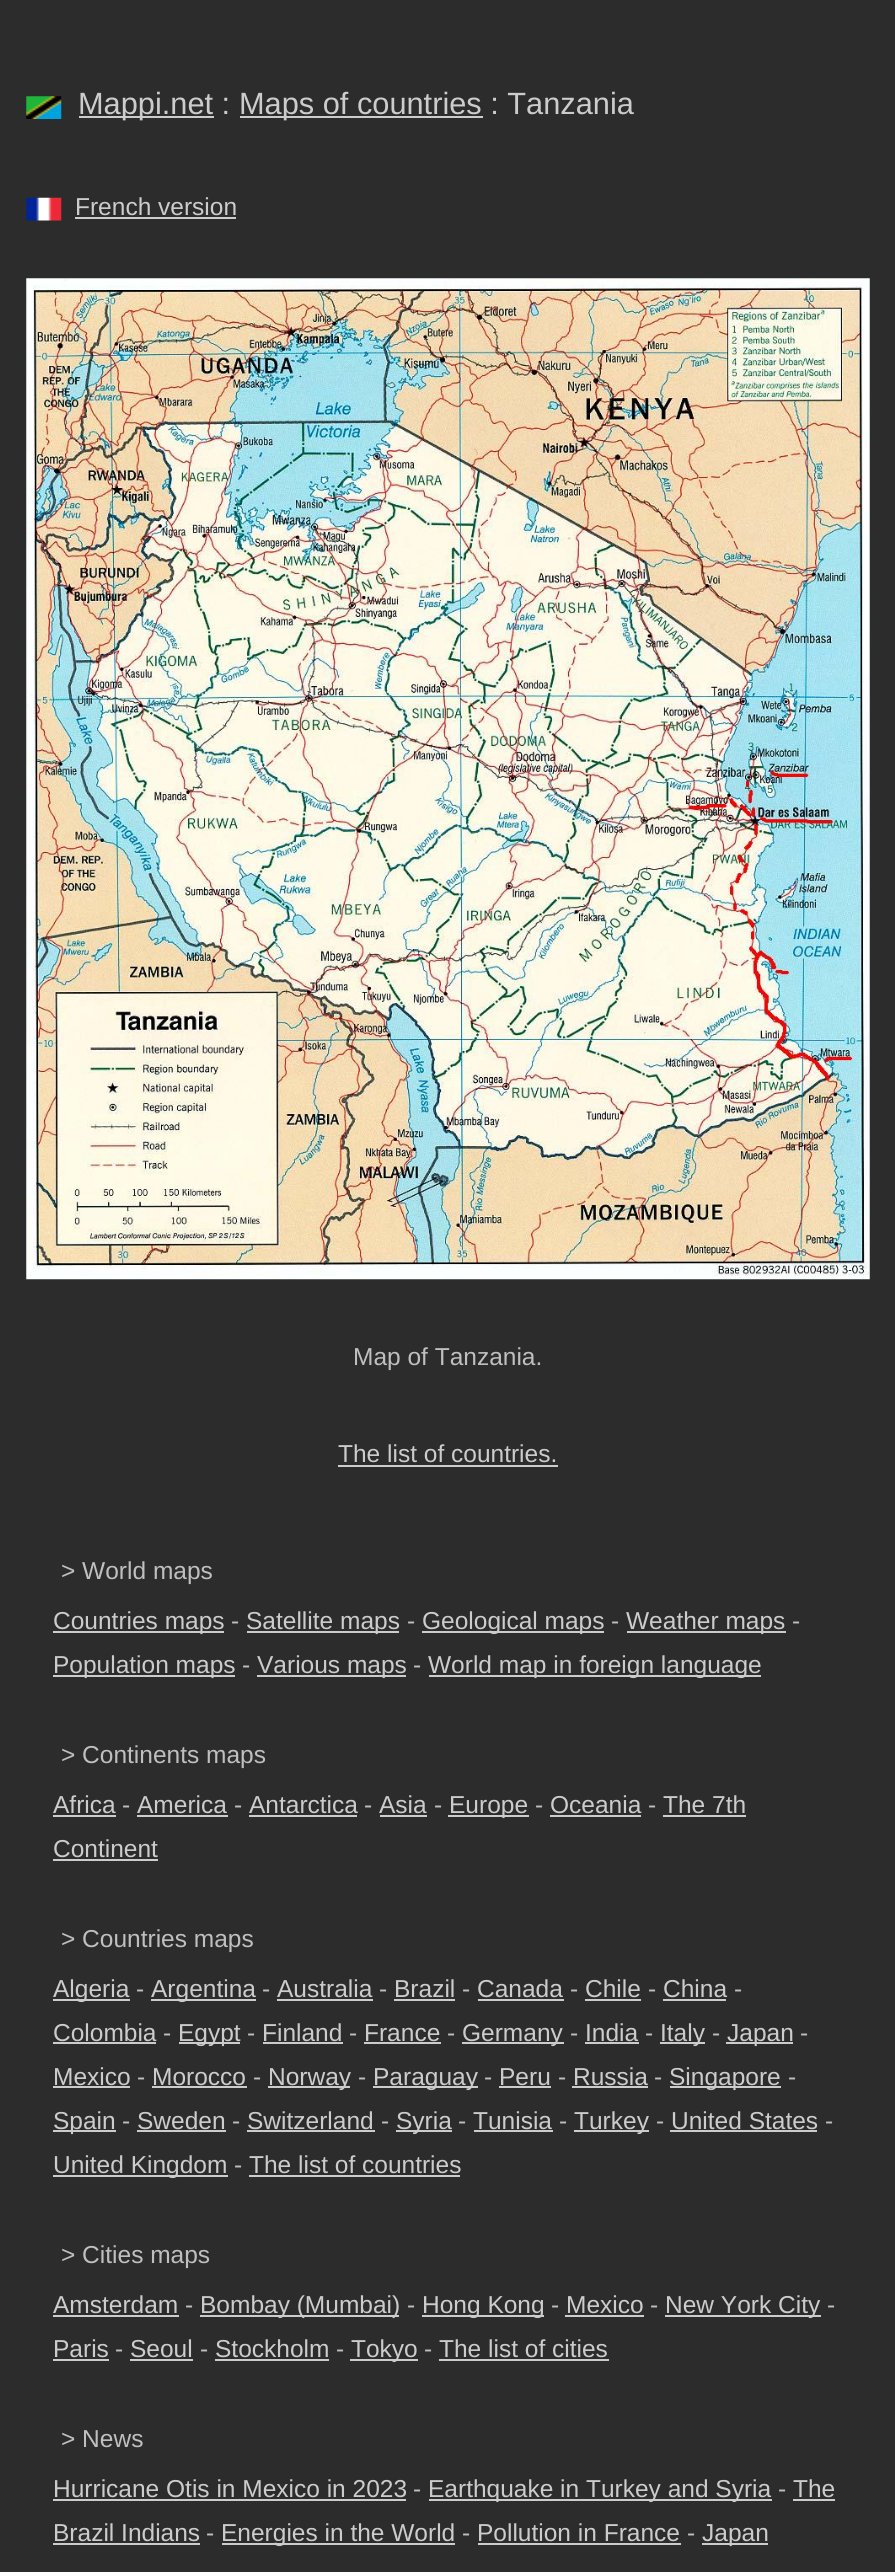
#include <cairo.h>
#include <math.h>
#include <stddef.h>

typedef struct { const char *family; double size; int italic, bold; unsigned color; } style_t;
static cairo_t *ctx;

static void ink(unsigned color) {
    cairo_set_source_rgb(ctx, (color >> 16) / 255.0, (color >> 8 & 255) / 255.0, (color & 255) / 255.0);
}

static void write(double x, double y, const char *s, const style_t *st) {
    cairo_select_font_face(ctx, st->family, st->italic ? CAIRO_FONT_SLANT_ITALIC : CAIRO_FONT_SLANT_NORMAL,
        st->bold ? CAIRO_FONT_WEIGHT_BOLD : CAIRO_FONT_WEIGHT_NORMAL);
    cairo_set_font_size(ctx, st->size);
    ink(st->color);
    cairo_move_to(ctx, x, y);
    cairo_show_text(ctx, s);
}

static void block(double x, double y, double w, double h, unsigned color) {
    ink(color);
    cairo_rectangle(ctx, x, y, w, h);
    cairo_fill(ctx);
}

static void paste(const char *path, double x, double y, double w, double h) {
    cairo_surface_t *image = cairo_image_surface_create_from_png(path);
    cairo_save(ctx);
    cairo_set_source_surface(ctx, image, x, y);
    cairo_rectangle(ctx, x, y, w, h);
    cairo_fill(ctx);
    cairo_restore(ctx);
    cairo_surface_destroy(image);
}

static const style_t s1 = {"Liberation Sans", 30.75, 0, 0, 0xcccccc};
static const style_t s2 = {"Liberation Sans", 24.5, 0, 0, 0xcccccc};
static const style_t s3 = {"Liberation Sans", 24.5, 0, 0, 0xbfbfbf};

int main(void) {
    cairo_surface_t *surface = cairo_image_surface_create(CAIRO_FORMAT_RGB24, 895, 2572);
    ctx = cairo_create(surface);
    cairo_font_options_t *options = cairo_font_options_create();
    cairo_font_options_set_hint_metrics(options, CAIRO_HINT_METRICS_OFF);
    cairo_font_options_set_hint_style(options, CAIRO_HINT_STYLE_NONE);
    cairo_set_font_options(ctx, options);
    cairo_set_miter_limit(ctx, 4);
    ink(0x2c2c2c);
    cairo_paint(ctx);
    paste("pic1.png", 26, 96, 36, 23);
    block(79, 116, 135, 2, 0xcccccc);
    write(78, 114, "Mappi.net :", &s1);
    block(240, 116, 243, 2, 0xcccccc);
    write(239, 114, "Maps of countries : Tanzania", &s1);
    paste("pic2.png", 26, 197, 36, 24);
    write(75, 215, "French version", &s2);
    block(75, 217, 161, 2, 0xcccccc);
    paste("pic3.png", 26, 278, 844, 1002);
    write(353, 1365, "Map of Tanzania.", &s3);
    write(338, 1462, "The list of countries.", &s2);
    block(338, 1465, 220, 2, 0xcccccc);
    write(61, 1579, "> World maps", &s3);
    block(53, 1631, 171, 2, 0xcccccc);
    write(53, 1629, "Countries maps", &s2);
    write(231, 1629, "-", &s3);
    block(247, 1631, 152, 2, 0xcccccc);
    write(246, 1629, "Satellite maps", &s2);
    write(407, 1629, "-", &s3);
    block(422, 1631, 182, 2, 0xcccccc);
    write(422, 1629, "Geological maps", &s2);
    write(611, 1629, "-", &s3);
    block(627, 1631, 159, 2, 0xcccccc);
    write(626, 1629, "Weather maps", &s2);
    write(792, 1629, "-", &s3);
    block(53, 1675, 182, 2, 0xcccccc);
    write(53, 1673, "Population maps", &s2);
    write(242, 1673, "-", &s3);
    block(257, 1675, 149, 2, 0xcccccc);
    write(257, 1673, "Various maps", &s2);
    write(413, 1673, "-", &s3);
    block(429, 1675, 332, 2, 0xcccccc);
    write(428, 1673, "World map in foreign language", &s2);
    write(61, 1763, "> Continents maps", &s3);
    write(53, 1813, "Africa", &s2);
    block(53, 1815, 63, 2, 0xcccccc);
    write(122, 1813, "-", &s3);
    write(137, 1813, "America", &s2);
    block(137, 1815, 91, 2, 0xcccccc);
    write(234, 1813, "-", &s3);
    write(249, 1813, "Antarctica", &s2);
    block(249, 1815, 108, 2, 0xcccccc);
    write(364, 1813, "-", &s3);
    write(379, 1813, "Asia", &s2);
    block(380, 1815, 47, 2, 0xcccccc);
    write(434, 1813, "-", &s3);
    block(448, 1815, 81, 2, 0xcccccc);
    write(449, 1813, "Europe", &s2);
    write(535, 1813, "-", &s3);
    write(550, 1813, "Oceania", &s2);
    block(550, 1815, 91, 2, 0xcccccc);
    write(648, 1813, "-", &s3);
    write(663, 1813, "The 7th", &s2);
    block(663, 1815, 83, 2, 0xcccccc);
    write(53, 1857, "Continent", &s2);
    block(53, 1859, 105, 2, 0xcccccc);
    write(61, 1947, "> Countries maps", &s3);
    block(53, 1999, 77, 2, 0xcccccc);
    write(53, 1997, "Algeria", &s2);
    write(136, 1997, "-", &s3);
    block(151, 1999, 105, 2, 0xcccccc);
    write(151, 1997, "Argentina", &s2);
    write(262, 1997, "-", &s3);
    write(277, 1997, "Australia", &s2);
    block(277, 1999, 96, 2, 0xcccccc);
    write(379, 1997, "-", &s3);
    write(394, 1997, "Brazil", &s2);
    block(394, 1999, 61, 2, 0xcccccc);
    write(462, 1997, "-", &s3);
    write(477, 1997, "Canada", &s2);
    block(478, 1999, 86, 2, 0xcccccc);
    write(570, 1997, "-", &s3);
    write(585, 1997, "Chile", &s2);
    block(585, 1999, 56, 2, 0xcccccc);
    write(648, 1997, "-", &s3);
    write(663, 1997, "China", &s2);
    block(663, 1999, 63, 2, 0xcccccc);
    write(734, 1997, "-", &s3);
    write(53, 2041, "Colombia", &s2);
    block(53, 2042, 103, 2, 0xcccccc);
    write(163, 2041, "-", &s3);
    block(179, 2042, 61, 2, 0xcccccc);
    write(178, 2041, "Egypt", &s2);
    write(247, 2041, "-", &s3);
    write(262, 2041, "Finland", &s2);
    block(263, 2042, 80, 2, 0xcccccc);
    write(349, 2041, "-", &s3);
    write(364, 2041, "France", &s2);
    block(364, 2042, 77, 2, 0xcccccc);
    write(447, 2041, "-", &s3);
    block(462, 2042, 102, 2, 0xcccccc);
    write(462, 2041, "Germany", &s2);
    write(570, 2041, "-", &s3);
    write(585, 2041, "India", &s2);
    block(585, 2042, 54, 2, 0xcccccc);
    write(645, 2041, "-", &s3);
    block(660, 2042, 45, 2, 0xcccccc);
    write(660, 2041, "Italy", &s2);
    write(712, 2041, "-", &s3);
    block(726, 2042, 67, 2, 0xcccccc);
    write(727, 2041, "Japan", &s2);
    write(800, 2041, "-", &s3);
    write(53, 2085, "Mexico", &s2);
    block(53, 2086, 77, 2, 0xcccccc);
    write(137, 2085, "-", &s3);
    write(152, 2085, "Morocco", &s2);
    block(152, 2086, 95, 2, 0xcccccc);
    write(253, 2085, "-", &s3);
    block(268, 2086, 82, 2, 0xcccccc);
    write(268, 2085, "Norway", &s2);
    write(358, 2085, "-", &s3);
    block(373, 2086, 105, 2, 0xcccccc);
    write(373, 2085, "Paraguay", &s2);
    write(484, 2085, "-", &s3);
    write(499, 2085, "Peru", &s2);
    block(499, 2086, 52, 2, 0xcccccc);
    write(558, 2085, "-", &s3);
    write(573, 2085, "Russia", &s2);
    block(572, 2086, 76, 2, 0xcccccc);
    write(654, 2085, "-", &s3);
    block(670, 2086, 111, 2, 0xcccccc);
    write(669, 2085, "Singapore", &s2);
    write(788, 2085, "-", &s3);
    block(53, 2130, 63, 2, 0xcccccc);
    write(53, 2129, "Spain", &s2);
    write(122, 2129, "-", &s3);
    write(137, 2129, "Sweden", &s2);
    block(137, 2130, 89, 2, 0xcccccc);
    write(232, 2129, "-", &s3);
    write(247, 2129, "Switzerland", &s2);
    block(247, 2130, 128, 2, 0xcccccc);
    write(381, 2129, "-", &s3);
    block(396, 2130, 56, 2, 0xcccccc);
    write(396, 2129, "Syria", &s2);
    write(458, 2129, "-", &s3);
    write(473, 2129, "Tunisia", &s2);
    block(474, 2130, 79, 2, 0xcccccc);
    write(559, 2129, "-", &s3);
    block(574, 2130, 75, 2, 0xcccccc);
    write(574, 2129, "Turkey", &s2);
    write(656, 2129, "-", &s3);
    write(671, 2129, "United States", &s2);
    block(670, 2130, 147, 2, 0xcccccc);
    write(825, 2129, "-", &s3);
    block(53, 2175, 175, 2, 0xcccccc);
    write(53, 2173, "United Kingdom", &s2);
    write(234, 2173, "-", &s3);
    write(249, 2173, "The list of countries", &s2);
    block(249, 2175, 211, 2, 0xcccccc);
    write(61, 2263, "> Cities maps", &s3);
    write(53, 2313, "Amsterdam", &s2);
    block(53, 2315, 126, 2, 0xcccccc);
    write(185, 2313, "-", &s3);
    block(200, 2315, 199, 2, 0xcccccc);
    write(200, 2313, "Bombay (Mumbai)", &s2);
    write(407, 2313, "-", &s3);
    block(422, 2315, 122, 2, 0xcccccc);
    write(422, 2313, "Hong Kong", &s2);
    write(551, 2313, "-", &s3);
    write(566, 2313, "Mexico", &s2);
    block(565, 2315, 79, 2, 0xcccccc);
    write(650, 2313, "-", &s3);
    block(665, 2315, 156, 2, 0xcccccc);
    write(665, 2313, "New York City", &s2);
    write(827, 2313, "-", &s3);
    write(53, 2357, "Paris", &s2);
    block(53, 2359, 56, 2, 0xcccccc);
    write(115, 2357, "-", &s3);
    write(130, 2357, "Seoul", &s2);
    block(130, 2359, 63, 2, 0xcccccc);
    write(200, 2357, "-", &s3);
    write(215, 2357, "Stockholm", &s2);
    block(215, 2359, 114, 2, 0xcccccc);
    write(336, 2357, "-", &s3);
    block(350, 2359, 68, 2, 0xcccccc);
    write(351, 2357, "Tokyo", &s2);
    write(424, 2357, "-", &s3);
    write(439, 2357, "The list of cities", &s2);
    block(439, 2359, 170, 2, 0xcccccc);
    write(61, 2447, "> News", &s3);
    write(53, 2497, "Hurricane Otis in Mexico in 2023", &s2);
    block(53, 2499, 353, 2, 0xcccccc);
    write(413, 2497, "-", &s3);
    block(429, 2499, 343, 2, 0xcccccc);
    write(428, 2497, "Earthquake in Turkey and Syria", &s2);
    write(778, 2497, "-", &s3);
    write(793, 2497, "The", &s2);
    block(793, 2499, 42, 2, 0xcccccc);
    write(53, 2541, "Brazil Indians", &s2);
    block(53, 2543, 147, 2, 0xcccccc);
    write(206, 2541, "-", &s3);
    block(222, 2543, 233, 2, 0xcccccc);
    write(221, 2541, "Energies in the World", &s2);
    write(462, 2541, "-", &s3);
    write(477, 2541, "Pollution in France", &s2);
    block(478, 2543, 203, 2, 0xcccccc);
    write(687, 2541, "-", &s3);
    block(702, 2543, 66, 2, 0xcccccc);
    write(702, 2541, "Japan", &s2);
    cairo_surface_write_to_png(surface, "screenshot.png");
    cairo_font_options_destroy(options);
    cairo_destroy(ctx);
    cairo_surface_destroy(surface);
    return 0;
}
